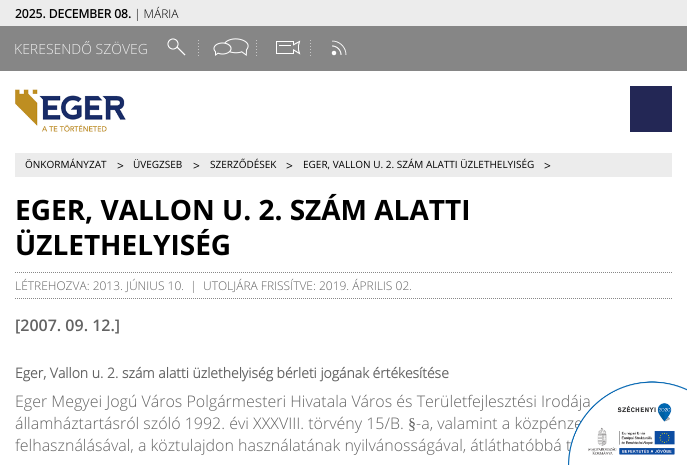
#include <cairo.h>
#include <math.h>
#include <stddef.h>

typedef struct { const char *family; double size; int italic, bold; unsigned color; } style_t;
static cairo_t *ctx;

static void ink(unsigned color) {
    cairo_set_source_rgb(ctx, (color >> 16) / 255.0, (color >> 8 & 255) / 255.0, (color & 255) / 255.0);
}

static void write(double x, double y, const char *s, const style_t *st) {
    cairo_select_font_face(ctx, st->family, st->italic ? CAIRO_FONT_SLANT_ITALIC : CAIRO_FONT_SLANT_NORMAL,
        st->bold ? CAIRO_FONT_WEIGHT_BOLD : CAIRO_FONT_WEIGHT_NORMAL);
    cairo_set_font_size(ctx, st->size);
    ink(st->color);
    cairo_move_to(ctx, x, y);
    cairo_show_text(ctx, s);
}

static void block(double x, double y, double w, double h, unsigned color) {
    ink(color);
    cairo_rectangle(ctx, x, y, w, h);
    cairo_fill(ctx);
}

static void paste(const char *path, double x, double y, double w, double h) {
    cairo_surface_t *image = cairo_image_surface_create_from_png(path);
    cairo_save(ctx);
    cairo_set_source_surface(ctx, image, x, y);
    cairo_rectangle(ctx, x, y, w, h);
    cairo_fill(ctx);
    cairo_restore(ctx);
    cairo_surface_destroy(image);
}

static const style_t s1 = {"Open Sans", 12, 0, 1, 0x000000};
static const style_t s2 = {"Open Sans Light", 12, 0, 0, 0x000000};
static const style_t s3 = {"Open Sans Light", 14, 0, 0, 0xececec};
static const style_t s4 = {"Open Sans", 10, 0, 0, 0x000000};
static const style_t s5 = {"Open Sans", 12, 0, 0, 0x000000};
static const style_t s6 = {"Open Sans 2", 28, 0, 1, 0x000000};
static const style_t s7 = {"Open Sans Light", 12, 0, 0, 0x636363};
static const style_t s8 = {"Open Sans SemiBold", 16, 0, 0, 0x636363};
static const style_t s9 = {"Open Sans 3", 14, 0, 1, 0x636363};
static const style_t s10 = {"Open Sans Light", 16, 0, 0, 0x636363};
static const style_t s11 = {"Liberation Serif", 16, 0, 0, 0x636363};

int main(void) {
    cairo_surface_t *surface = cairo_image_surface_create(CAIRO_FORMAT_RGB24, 687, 465);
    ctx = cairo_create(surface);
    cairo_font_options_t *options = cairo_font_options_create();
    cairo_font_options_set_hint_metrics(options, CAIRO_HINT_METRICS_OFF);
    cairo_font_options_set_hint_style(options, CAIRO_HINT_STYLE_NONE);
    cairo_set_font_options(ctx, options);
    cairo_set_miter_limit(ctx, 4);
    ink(0xececec);
    cairo_paint(ctx);
    write(15, 18, "2025. DECEMBER 08.", &s1);
    write(134, 18, "| MÁRIA", &s2);
    block(0, 26, 687, 45, 0x868686);
    paste("pic1.png", 198, 40, 1, 16);
    write(14, 54, "KERESENDŐ SZÖVEG", &s3);
    paste("pic2.png", 167, 38, 19, 18);
    paste("pic1.png", 256, 40, 1, 16);
    paste("pic3.png", 213, 38, 36, 18);
    paste("pic1.png", 310, 40, 1, 16);
    paste("pic4.png", 276, 40, 25, 15);
    paste("pic5.png", 331, 40, 16, 16);
    block(0, 71, 687, 394, 0xffffff);
    paste("pic6.png", 15, 89, 111, 43);
    block(630, 86, 42, 46, 0x232755);
    block(15, 153, 657, 24, 0xececec);
    write(25, 168, "ÖNKORMÁNYZAT", &s4);
    write(117, 170, ">", &s5);
    write(133, 168, "ÜVEGZSEB", &s4);
    write(193, 170, ">", &s5);
    write(210, 168, "SZERZŐDÉSEK", &s4);
    write(286, 170, ">", &s5);
    write(303, 168, "EGER, VALLON U. 2. SZÁM ALATTI ÜZLETHELYISÉG", &s4);
    write(544, 170, ">", &s5);
    write(15, 220, "EGER, VALLON U. 2. SZÁM ALATTI", &s6);
    write(15, 255, "ÜZLETHELYISÉG", &s6);
    cairo_new_path(ctx);
    cairo_move_to(ctx, 15, 272.5);
    cairo_line_to(ctx, 672, 272.5);
    ink(0x888888);
    cairo_set_line_width(ctx, 1);
    cairo_set_dash(ctx, (double[]){1, 1}, 2, 0);
    cairo_stroke(ctx);
    cairo_new_path(ctx);
    cairo_move_to(ctx, 15, 298.5);
    cairo_line_to(ctx, 672, 298.5);
    cairo_stroke(ctx);
    write(15, 290, "LÉTREHOZVA: 2013. JÚNIUS 10.", &s7);
    write(190, 290, "|", &s7);
    write(203, 290, "UTOLJÁRA FRISSÍTVE: 2019. ÁPRILIS 02.", &s7);
    write(15, 331, "[2007. 09. 12.]", &s8);
    write(15, 378, "Eger, Vallon u. 2. szám alatti üzlethelyiség bérleti jogának értékesítése", &s9);
    write(15, 407, "Eger Megyei Jogú Város Polgármesteri Hivatala Város és Területfejlesztési Irodája", &s10);
    write(15, 429, "államháztartásról szóló 1992. évi XXXVIII. törvény 15/B.", &s10);
    write(408, 429, "§", &s11);
    write(416, 429, "-a, valamint a közpénze", &s10);
    write(15, 451, "felhasználásával, a köztulajdon használatának nyilvánosságával, átláthatóbbá t", &s10);
    paste("pic7.png", 568, 381, 119, 84);
    cairo_surface_write_to_png(surface, "screenshot.png");
    cairo_font_options_destroy(options);
    cairo_destroy(ctx);
    cairo_surface_destroy(surface);
    return 0;
}
